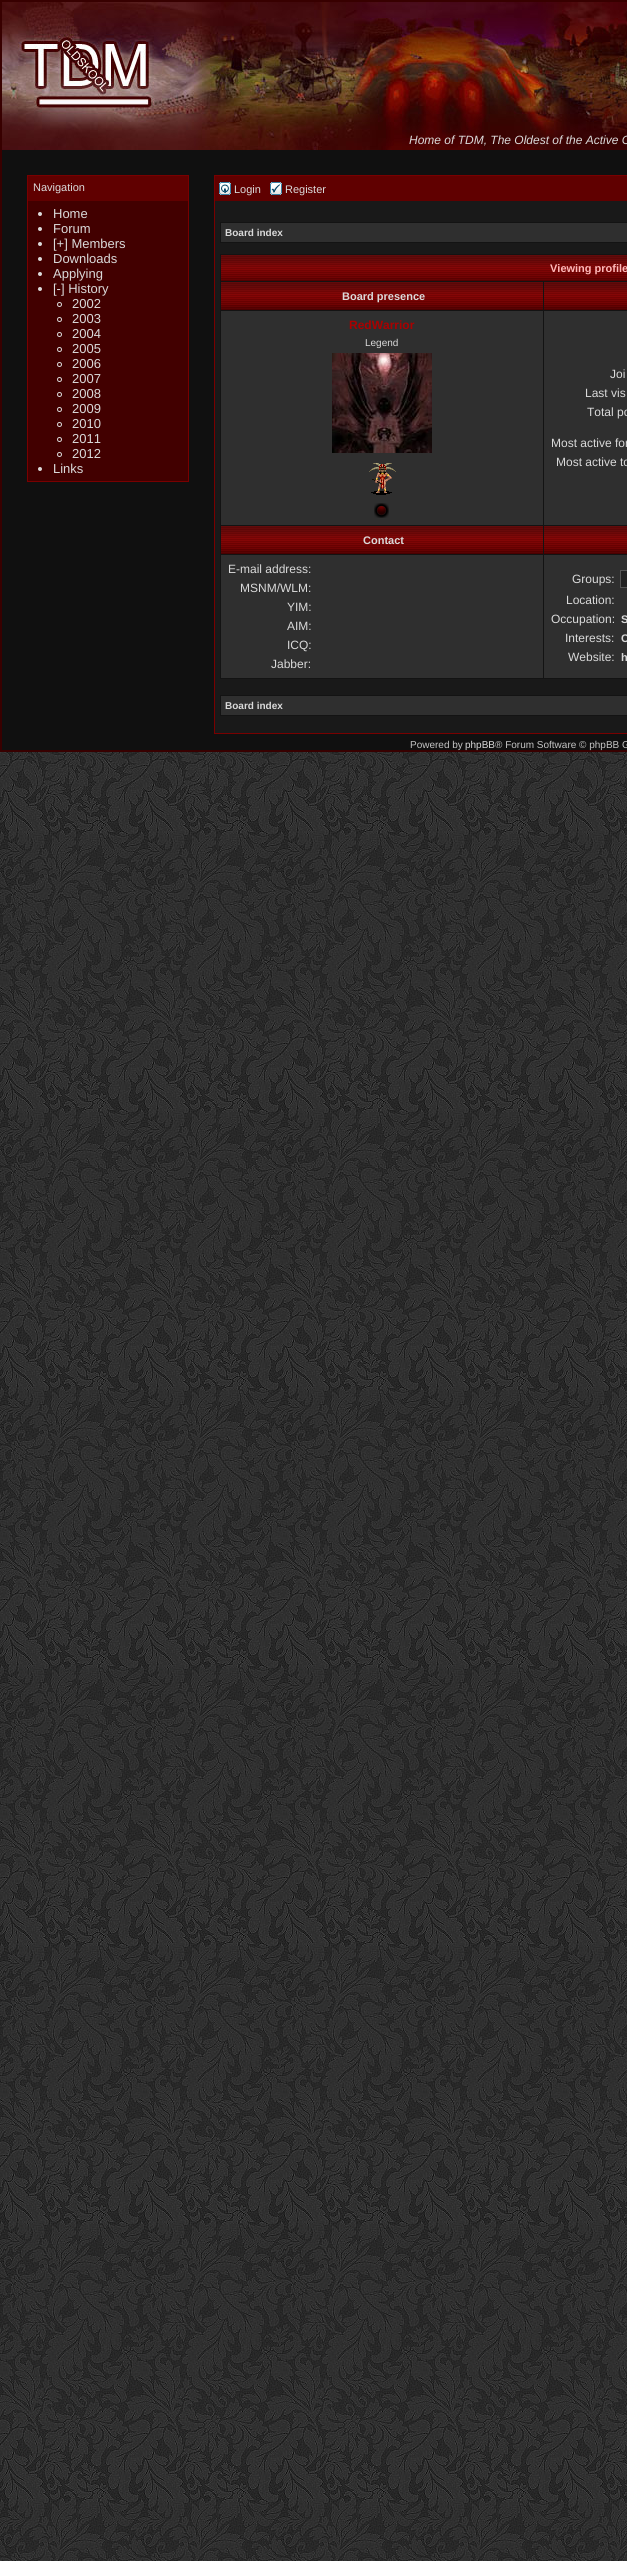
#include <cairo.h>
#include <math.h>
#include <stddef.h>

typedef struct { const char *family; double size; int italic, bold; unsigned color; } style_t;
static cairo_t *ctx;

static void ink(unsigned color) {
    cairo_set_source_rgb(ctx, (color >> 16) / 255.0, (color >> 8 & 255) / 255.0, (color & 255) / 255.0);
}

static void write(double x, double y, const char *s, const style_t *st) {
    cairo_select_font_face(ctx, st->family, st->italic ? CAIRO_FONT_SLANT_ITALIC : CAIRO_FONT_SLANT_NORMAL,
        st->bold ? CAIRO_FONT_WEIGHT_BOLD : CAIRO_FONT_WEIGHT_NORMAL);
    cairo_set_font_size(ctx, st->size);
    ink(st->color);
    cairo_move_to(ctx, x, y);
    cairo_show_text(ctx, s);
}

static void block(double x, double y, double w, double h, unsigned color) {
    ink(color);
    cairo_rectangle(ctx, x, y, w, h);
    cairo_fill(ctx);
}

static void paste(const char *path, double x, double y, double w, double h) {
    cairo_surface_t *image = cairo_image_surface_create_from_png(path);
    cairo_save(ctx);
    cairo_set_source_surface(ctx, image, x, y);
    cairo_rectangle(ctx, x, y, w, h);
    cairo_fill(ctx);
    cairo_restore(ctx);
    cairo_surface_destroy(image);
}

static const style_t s1 = {"Liberation Sans", 12, 1, 0, 0xdadada};
static const style_t s2 = {"Liberation Sans", 11, 0, 0, 0xdadada};
static const style_t s3 = {"Liberation Sans", 13, 0, 0, 0xdadada};
static const style_t s4 = {"Liberation Sans", 10, 0, 1, 0xdadada};
static const style_t s5 = {"Liberation Sans", 11, 0, 1, 0xffb9b9};
static const style_t s6 = {"Liberation Sans", 11, 0, 1, 0xdadada};
static const style_t s7 = {"Liberation Sans", 12, 0, 1, 0xaa0000};
static const style_t s8 = {"Liberation Sans", 10, 0, 0, 0xdadada};
static const style_t s9 = {"Liberation Sans", 12, 0, 0, 0xdadada};
static const style_t s10 = {"Liberation Sans", 10, 0, 0, 0xc5c5c5};

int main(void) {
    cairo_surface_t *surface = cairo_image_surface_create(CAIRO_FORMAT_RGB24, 627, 2561);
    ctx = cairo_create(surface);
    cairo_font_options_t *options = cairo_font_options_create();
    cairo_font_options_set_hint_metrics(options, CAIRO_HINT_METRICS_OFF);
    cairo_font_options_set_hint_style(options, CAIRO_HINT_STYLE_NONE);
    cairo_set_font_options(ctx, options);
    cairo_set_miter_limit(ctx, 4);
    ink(0xffffff);
    cairo_paint(ctx);
    paste("pic1.png", 0, 752, 627, 1809);
    block(2, 150, 625, 600, 0x101010);
    cairo_rectangle(ctx, 1, 1, 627, 750);
    ink(0x380000);
    cairo_stroke(ctx);
    paste("pic2.png", 2, 2, 625, 148);
    write(409, 144, "Home of TDM, The Oldest of the Active C", &s1);
    cairo_rectangle(ctx, 27.5, 175.5, 161, 306);
    ink(0x790000);
    cairo_set_line_width(ctx, 1);
    cairo_stroke(ctx);
    block(28, 176, 160, 25, 0x600000);
    write(33, 191, "Navigation", &s2);
    block(28, 201, 160, 280, 0x420000);
    ink(0xdadada);
    cairo_new_path(ctx);
    cairo_arc(ctx, 40, 214, 2, 0, 2 * M_PI);
    cairo_fill(ctx);
    write(53, 218, "Home", &s3);
    cairo_new_path(ctx);
    cairo_arc(ctx, 40, 229, 2, 0, 2 * M_PI);
    cairo_fill(ctx);
    write(53, 233, "Forum", &s3);
    cairo_new_path(ctx);
    cairo_arc(ctx, 40, 244, 2, 0, 2 * M_PI);
    cairo_fill(ctx);
    write(53, 248, "[+] Members", &s3);
    cairo_new_path(ctx);
    cairo_arc(ctx, 40, 259, 2, 0, 2 * M_PI);
    cairo_fill(ctx);
    write(53, 263, "Downloads", &s3);
    cairo_new_path(ctx);
    cairo_arc(ctx, 40, 274, 2, 0, 2 * M_PI);
    cairo_fill(ctx);
    write(53, 278, "Applying", &s3);
    cairo_new_path(ctx);
    cairo_arc(ctx, 40, 289, 2, 0, 2 * M_PI);
    cairo_fill(ctx);
    write(53, 293, "[-] History", &s3);
    cairo_new_path(ctx);
    cairo_arc(ctx, 59.5, 304.5, 2, 0, 2 * M_PI);
    cairo_stroke(ctx);
    write(72, 308, "2002", &s3);
    cairo_new_path(ctx);
    cairo_arc(ctx, 59.5, 319.5, 2, 0, 2 * M_PI);
    cairo_stroke(ctx);
    write(72, 323, "2003", &s3);
    cairo_new_path(ctx);
    cairo_arc(ctx, 59.5, 334.5, 2, 0, 2 * M_PI);
    cairo_stroke(ctx);
    write(72, 338, "2004", &s3);
    cairo_new_path(ctx);
    cairo_arc(ctx, 59.5, 349.5, 2, 0, 2 * M_PI);
    cairo_stroke(ctx);
    write(72, 353, "2005", &s3);
    cairo_new_path(ctx);
    cairo_arc(ctx, 59.5, 364.5, 2, 0, 2 * M_PI);
    cairo_stroke(ctx);
    write(72, 368, "2006", &s3);
    cairo_new_path(ctx);
    cairo_arc(ctx, 59.5, 379.5, 2, 0, 2 * M_PI);
    cairo_stroke(ctx);
    write(72, 383, "2007", &s3);
    cairo_new_path(ctx);
    cairo_arc(ctx, 59.5, 394.5, 2, 0, 2 * M_PI);
    cairo_stroke(ctx);
    write(72, 398, "2008", &s3);
    cairo_new_path(ctx);
    cairo_arc(ctx, 59.5, 409.5, 2, 0, 2 * M_PI);
    cairo_stroke(ctx);
    write(72, 413, "2009", &s3);
    cairo_new_path(ctx);
    cairo_arc(ctx, 59.5, 424.5, 2, 0, 2 * M_PI);
    cairo_stroke(ctx);
    write(72, 428, "2010", &s3);
    cairo_new_path(ctx);
    cairo_arc(ctx, 59.5, 439.5, 2, 0, 2 * M_PI);
    cairo_stroke(ctx);
    write(72, 443, "2011", &s3);
    cairo_new_path(ctx);
    cairo_arc(ctx, 59.5, 454.5, 2, 0, 2 * M_PI);
    cairo_stroke(ctx);
    write(72, 458, "2012", &s3);
    cairo_new_path(ctx);
    cairo_arc(ctx, 40, 469, 2, 0, 2 * M_PI);
    cairo_fill(ctx);
    write(53, 473, "Links", &s3);
    cairo_rectangle(ctx, 214.5, 175.5, 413, 558);
    ink(0x790000);
    cairo_stroke(ctx);
    block(215, 176, 412, 25, 0x600000);
    paste("pic3.png", 219, 182, 12, 13);
    write(234, 193, "Login", &s2);
    paste("pic4.png", 270, 182, 12, 13);
    write(285, 193, "Register", &s2);
    block(215, 201, 412, 532, 0x191919);
    block(220, 222, 407, 21, 0x131313);
    block(221, 223, 406, 19, 0x2f2f2f);
    write(225, 236, "Board index", &s4);
    block(220, 254, 407, 425, 0x131313);
    paste("pic5.png", 221, 255, 406, 26);
    write(550, 272, "Viewing profile", &s5);
    paste("pic6.png", 221, 282, 322, 28);
    write(342, 300, "Board presence", &s6);
    paste("pic7.png", 544, 282, 83, 28);
    block(221, 311, 322, 214, 0x2f2f2f);
    write(349, 329, "RedWarrior", &s7);
    write(365, 346, "Legend", &s8);
    paste("pic8.png", 332, 353, 100, 100);
    paste("pic9.png", 369, 463, 27, 32);
    paste("pic10.png", 374, 503, 15, 15);
    block(544, 311, 83, 214, 0x2f2f2f);
    write(610, 378, "Joi", &s9);
    write(585, 397, "Last vis", &s9);
    write(587, 416, "Total po", &s9);
    write(551, 447, "Most active for", &s9);
    write(556, 466, "Most active to", &s9);
    paste("pic6.png", 221, 526, 322, 28);
    write(363, 544, "Contact", &s6);
    paste("pic7.png", 544, 526, 83, 28);
    block(221, 555, 322, 123, 0x2f2f2f);
    write(228, 573, "E-mail address:", &s9);
    write(240, 592, "MSNM/WLM:", &s9);
    write(287, 611, "YIM:", &s9);
    write(287, 630, "AIM:", &s9);
    write(287, 649, "ICQ:", &s9);
    write(271, 668, "Jabber:", &s9);
    block(544, 555, 83, 123, 0x2f2f2f);
    write(572, 583, "Groups:", &s9);
    ink(0x222222);
    cairo_rectangle(ctx, 620.5, 570.5, 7, 17);
    cairo_fill_preserve(ctx);
    ink(0x555555);
    cairo_stroke(ctx);
    write(566, 604, "Location:", &s9);
    write(551, 623, "Occupation:", &s9);
    write(621, 623, "S", &s6);
    write(565, 642, "Interests:", &s9);
    write(621, 642, "C", &s6);
    write(568, 661, "Website:", &s9);
    write(621, 661, "h", &s6);
    block(220, 695, 407, 21, 0x131313);
    block(221, 696, 406, 19, 0x2f2f2f);
    write(225, 709, "Board index", &s4);
    write(410, 748, "Powered by", &s10);
    write(465, 748, "phpBB", &s8);
    write(495, 748, "® Forum Software © phpBB G", &s10);
    cairo_surface_write_to_png(surface, "screenshot.png");
    cairo_font_options_destroy(options);
    cairo_destroy(ctx);
    cairo_surface_destroy(surface);
    return 0;
}
